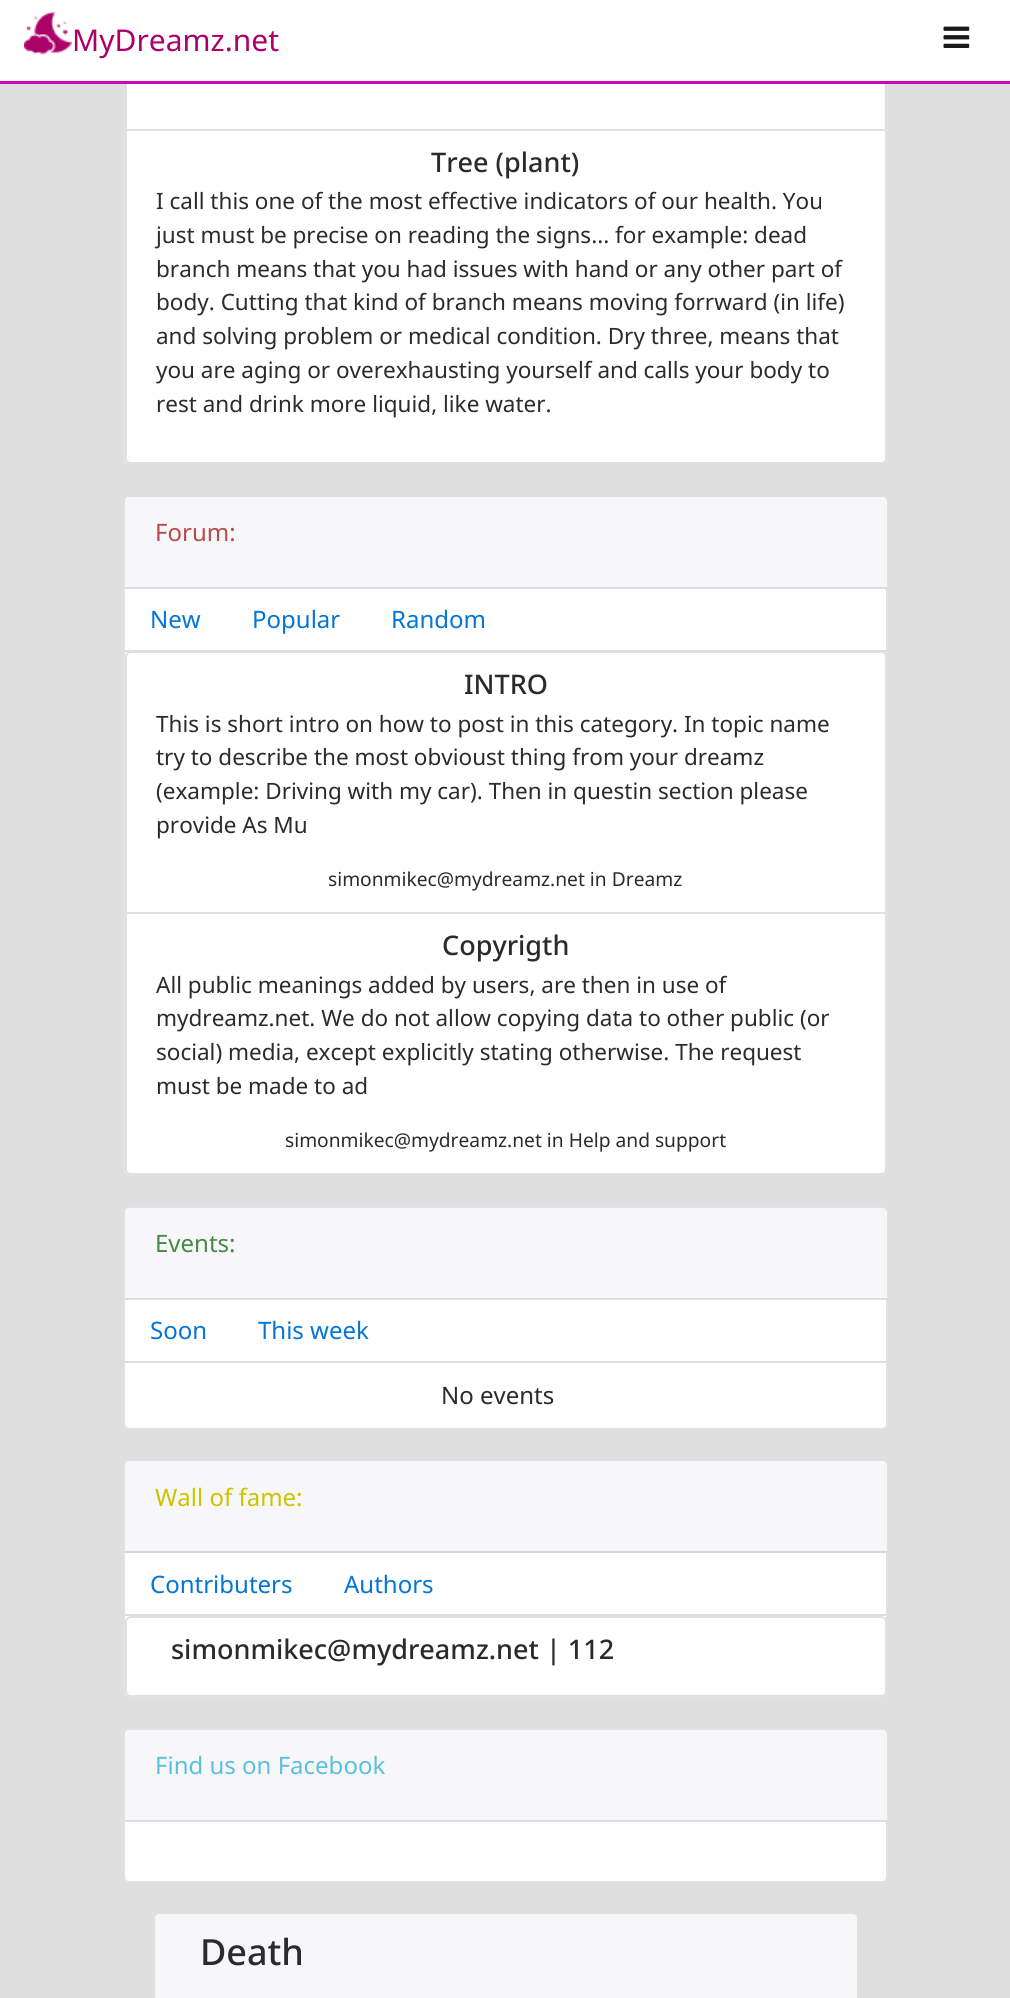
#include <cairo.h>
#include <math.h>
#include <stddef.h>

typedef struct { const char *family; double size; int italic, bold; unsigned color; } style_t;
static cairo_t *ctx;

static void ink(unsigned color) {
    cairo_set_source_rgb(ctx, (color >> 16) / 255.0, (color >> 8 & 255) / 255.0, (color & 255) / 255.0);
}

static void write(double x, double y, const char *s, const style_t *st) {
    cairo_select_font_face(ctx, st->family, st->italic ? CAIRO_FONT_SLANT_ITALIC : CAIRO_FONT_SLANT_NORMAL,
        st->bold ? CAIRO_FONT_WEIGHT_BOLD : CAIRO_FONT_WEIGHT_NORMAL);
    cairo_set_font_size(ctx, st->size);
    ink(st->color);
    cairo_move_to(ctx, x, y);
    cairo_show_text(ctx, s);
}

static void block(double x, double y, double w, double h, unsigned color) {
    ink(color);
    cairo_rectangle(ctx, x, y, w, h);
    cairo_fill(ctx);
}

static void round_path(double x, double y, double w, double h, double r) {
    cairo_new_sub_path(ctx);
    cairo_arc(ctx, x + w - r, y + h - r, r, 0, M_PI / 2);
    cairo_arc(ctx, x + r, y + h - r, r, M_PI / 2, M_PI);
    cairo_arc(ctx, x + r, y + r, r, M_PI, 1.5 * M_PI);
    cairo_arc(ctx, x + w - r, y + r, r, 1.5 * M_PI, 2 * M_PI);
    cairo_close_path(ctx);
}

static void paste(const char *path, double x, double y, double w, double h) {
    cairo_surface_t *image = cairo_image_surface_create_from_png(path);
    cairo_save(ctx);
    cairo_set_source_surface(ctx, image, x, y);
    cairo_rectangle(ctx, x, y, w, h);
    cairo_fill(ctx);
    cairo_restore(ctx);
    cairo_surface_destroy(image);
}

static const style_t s1 = {"Noto Sans", 30, 0, 0, 0xac0069};
static const style_t s2 = {"Noto Sans Medium", 27, 0, 0, 0x292b2c};
static const style_t s3 = {"Noto Sans", 22.5, 0, 0, 0x292b2c};
static const style_t s4 = {"Noto Sans", 24, 0, 0, 0xb94a48};
static const style_t s5 = {"Noto Sans", 24, 0, 0, 0x0275d8};
static const style_t s6 = {"Noto Sans", 19.2, 0, 0, 0x292b2c};
static const style_t s7 = {"Noto Sans", 24, 0, 0, 0x468847};
static const style_t s8 = {"Noto Sans", 24, 0, 0, 0x292b2c};
static const style_t s9 = {"Noto Sans", 24, 0, 0, 0xccc200};
static const style_t s10 = {"Noto Sans", 24, 0, 0, 0x5bc0de};
static const style_t s11 = {"Noto Sans Medium", 36, 0, 0, 0x292b2c};

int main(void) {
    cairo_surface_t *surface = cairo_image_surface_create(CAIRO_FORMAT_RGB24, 1010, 1998);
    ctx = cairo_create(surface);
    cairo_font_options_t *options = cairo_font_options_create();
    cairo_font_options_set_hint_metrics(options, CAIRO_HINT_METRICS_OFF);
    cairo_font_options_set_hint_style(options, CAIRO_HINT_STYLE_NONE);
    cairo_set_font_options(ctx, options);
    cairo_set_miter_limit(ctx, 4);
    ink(0xdfdfdf);
    cairo_paint(ctx);
    ink(0xffffff);
    round_path(123, -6, 765, 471, 6);
    cairo_fill(ctx);
    round_path(124, -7, 763, 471, 5);
    cairo_set_source_rgba(ctx, 0, 0, 0, 0.12);
    cairo_stroke(ctx);
    cairo_rectangle(ctx, 126, -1, 760, 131);
    ink(0xdfdfdf);
    cairo_stroke(ctx);
    block(0, 0, 1010, 81, 0xffffff);
    block(0, 81, 1010, 3, 0xd104b8);
    paste("pic1.png", 24, 11, 48, 44);
    write(72, 51, "MyDreamz.net", &s1);
    paste("pic2.png", 943, 26, 27, 22);
    ink(0xffffff);
    cairo_new_path(ctx);
    cairo_move_to(ctx, 125, 129);
    cairo_line_to(ctx, 887, 129);
    cairo_line_to(ctx, 887, 458);
    cairo_curve_to(ctx, 887, 461.5, 884.5, 464, 881, 464);
    cairo_line_to(ctx, 131, 464);
    cairo_curve_to(ctx, 127.5, 464, 125, 461.5, 125, 458);
    cairo_close_path(ctx);
    cairo_fill(ctx);
    cairo_new_path(ctx);
    cairo_move_to(ctx, 126, 130);
    cairo_line_to(ctx, 886, 130);
    cairo_line_to(ctx, 886, 458);
    cairo_curve_to(ctx, 886, 461, 884, 463, 881, 463);
    cairo_line_to(ctx, 131, 463);
    cairo_curve_to(ctx, 128, 463, 126, 461, 126, 458);
    cairo_close_path(ctx);
    cairo_set_source_rgba(ctx, 0, 0, 0, 0.12);
    cairo_stroke(ctx);
    write(431, 172, "Tree (plant)", &s2);
    write(156, 209, "I call this one of the most effective indicators of our health. You", &s3);
    write(156, 243, "just must be precise on reading the signs... for example: dead", &s3);
    write(156, 277, "branch means that you had issues with hand or any other part of", &s3);
    write(156, 310, "body. Cutting that kind of branch means moving forrward (in life)", &s3);
    write(156, 344, "and solving problem or medical condition. Dry three, means that", &s3);
    write(156, 378, "you are aging or overexhausting yourself and calls your body to", &s3);
    write(156, 412, "rest and drink more liquid, like water.", &s3);
    ink(0xffffff);
    round_path(123, 495, 765, 681, 6);
    cairo_fill(ctx);
    round_path(124, 496, 763, 679, 5);
    cairo_set_source_rgba(ctx, 0, 0, 0, 0.12);
    cairo_stroke(ctx);
    ink(0xf7f7f9);
    cairo_new_path(ctx);
    cairo_move_to(ctx, 130, 497);
    cairo_line_to(ctx, 882, 497);
    cairo_curve_to(ctx, 885, 497, 887, 499, 887, 502);
    cairo_line_to(ctx, 887, 588);
    cairo_line_to(ctx, 125, 588);
    cairo_line_to(ctx, 125, 502);
    cairo_curve_to(ctx, 125, 499, 127, 497, 130, 497);
    cairo_close_path(ctx);
    cairo_fill(ctx);
    cairo_set_source_rgba(ctx, 0, 0, 0, 0.12);
    cairo_rectangle(ctx, 125, 587, 762, 2);
    cairo_fill(ctx);
    write(155, 541, "Forum:", &s4);
    block(125, 650, 762, 2, 0xdddddd);
    write(150, 628, "New", &s5);
    write(252, 628, "Popular", &s5);
    write(391, 628, "Random", &s5);
    ink(0xffffff);
    cairo_new_path(ctx);
    cairo_move_to(ctx, 131, 651);
    cairo_line_to(ctx, 881, 651);
    cairo_curve_to(ctx, 884.5, 651, 887, 653.5, 887, 657);
    cairo_line_to(ctx, 887, 914);
    cairo_line_to(ctx, 125, 914);
    cairo_line_to(ctx, 125, 657);
    cairo_curve_to(ctx, 125, 653.5, 127.5, 651, 131, 651);
    cairo_close_path(ctx);
    cairo_fill(ctx);
    cairo_new_path(ctx);
    cairo_move_to(ctx, 131, 652);
    cairo_line_to(ctx, 881, 652);
    cairo_curve_to(ctx, 884, 652, 886, 654, 886, 657);
    cairo_line_to(ctx, 886, 913);
    cairo_line_to(ctx, 126, 913);
    cairo_line_to(ctx, 126, 657);
    cairo_curve_to(ctx, 126, 654, 128, 652, 131, 652);
    cairo_close_path(ctx);
    cairo_set_source_rgba(ctx, 0, 0, 0, 0.12);
    cairo_stroke(ctx);
    write(464, 694, "INTRO", &s2);
    write(156, 732, "This is short intro on how to post in this category. In topic name", &s3);
    write(156, 765, "try to describe the most obvioust thing from your dreamz", &s3);
    write(156, 799, "(example: Driving with my car). Then in questin section please", &s3);
    write(156, 833, "provide As Mu", &s3);
    write(328, 886, "simonmikec@mydreamz.net in Dreamz", &s6);
    ink(0xffffff);
    cairo_new_path(ctx);
    cairo_move_to(ctx, 125, 912);
    cairo_line_to(ctx, 887, 912);
    cairo_line_to(ctx, 887, 1169);
    cairo_curve_to(ctx, 887, 1172.5, 884.5, 1175, 881, 1175);
    cairo_line_to(ctx, 131, 1175);
    cairo_curve_to(ctx, 127.5, 1175, 125, 1172.5, 125, 1169);
    cairo_close_path(ctx);
    cairo_fill(ctx);
    cairo_new_path(ctx);
    cairo_move_to(ctx, 126, 913);
    cairo_line_to(ctx, 886, 913);
    cairo_line_to(ctx, 886, 1169);
    cairo_curve_to(ctx, 886, 1172, 884, 1174, 881, 1174);
    cairo_line_to(ctx, 131, 1174);
    cairo_curve_to(ctx, 128, 1174, 126, 1172, 126, 1169);
    cairo_close_path(ctx);
    cairo_set_source_rgba(ctx, 0, 0, 0, 0.12);
    cairo_stroke(ctx);
    write(442, 955, "Copyrigth", &s2);
    write(156, 993, "All public meanings added by users, are then in use of", &s3);
    write(156, 1026, "mydreamz.net. We do not allow copying data to other public (or", &s3);
    write(156, 1060, "social) media, except explicitly stating otherwise. The request", &s3);
    write(156, 1094, "must be made to ad", &s3);
    write(285, 1147, "simonmikec@mydreamz.net in Help and support", &s6);
    ink(0xffffff);
    round_path(123, 1206, 765, 224, 6);
    cairo_fill(ctx);
    round_path(124, 1207, 763, 222, 5);
    cairo_set_source_rgba(ctx, 0, 0, 0, 0.12);
    cairo_stroke(ctx);
    ink(0xf7f7f9);
    cairo_new_path(ctx);
    cairo_move_to(ctx, 130, 1208);
    cairo_line_to(ctx, 882, 1208);
    cairo_curve_to(ctx, 885, 1208, 887, 1210, 887, 1213);
    cairo_line_to(ctx, 887, 1299);
    cairo_line_to(ctx, 125, 1299);
    cairo_line_to(ctx, 125, 1213);
    cairo_curve_to(ctx, 125, 1210, 127, 1208, 130, 1208);
    cairo_close_path(ctx);
    cairo_fill(ctx);
    cairo_set_source_rgba(ctx, 0, 0, 0, 0.12);
    cairo_rectangle(ctx, 125, 1298, 762, 2);
    cairo_fill(ctx);
    write(155, 1252, "Events:", &s7);
    block(125, 1361, 762, 2, 0xdddddd);
    write(150, 1339, "Soon", &s5);
    write(258, 1339, "This week", &s5);
    write(441, 1404, "No events", &s8);
    ink(0xffffff);
    round_path(123, 1460, 765, 238, 6);
    cairo_fill(ctx);
    round_path(124, 1461, 763, 236, 5);
    cairo_set_source_rgba(ctx, 0, 0, 0, 0.12);
    cairo_stroke(ctx);
    ink(0xf7f7f9);
    cairo_new_path(ctx);
    cairo_move_to(ctx, 130, 1461);
    cairo_line_to(ctx, 882, 1461);
    cairo_curve_to(ctx, 885, 1461, 887, 1463, 887, 1466);
    cairo_line_to(ctx, 887, 1553);
    cairo_line_to(ctx, 125, 1553);
    cairo_line_to(ctx, 125, 1466);
    cairo_curve_to(ctx, 125, 1463, 127, 1461, 130, 1461);
    cairo_close_path(ctx);
    cairo_fill(ctx);
    block(125, 1551, 762, 2, 0xd8d8da);
    write(155, 1506, "Wall of fame:", &s9);
    block(125, 1614, 762, 2, 0xdddddd);
    write(150, 1593, "Contributers", &s5);
    write(344, 1593, "Authors", &s5);
    ink(0xffffff);
    round_path(125, 1616, 762, 81, 6);
    cairo_fill(ctx);
    round_path(126, 1617, 760, 79, 5);
    cairo_set_source_rgba(ctx, 0, 0, 0, 0.12);
    cairo_stroke(ctx);
    write(171, 1659, "simonmikec@mydreamz.net | 112", &s2);
    ink(0xffffff);
    round_path(123, 1728, 765, 155, 6);
    cairo_fill(ctx);
    round_path(124, 1729, 763, 153, 5);
    cairo_set_source_rgba(ctx, 0, 0, 0, 0.12);
    cairo_stroke(ctx);
    ink(0xf7f7f9);
    cairo_new_path(ctx);
    cairo_move_to(ctx, 130, 1730);
    cairo_line_to(ctx, 882, 1730);
    cairo_curve_to(ctx, 885, 1730, 887, 1732, 887, 1735);
    cairo_line_to(ctx, 887, 1821);
    cairo_line_to(ctx, 125, 1821);
    cairo_line_to(ctx, 125, 1735);
    cairo_curve_to(ctx, 125, 1732, 127, 1730, 130, 1730);
    cairo_close_path(ctx);
    cairo_fill(ctx);
    cairo_set_source_rgba(ctx, 0, 0, 0, 0.12);
    cairo_rectangle(ctx, 125, 1820, 762, 2);
    cairo_fill(ctx);
    write(155, 1774, "Find us on Facebook", &s10);
    ink(0xffffff);
    round_path(153, 1913, 705, 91, 6);
    cairo_fill(ctx);
    round_path(154, 1914, 703, 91, 5);
    cairo_set_source_rgba(ctx, 0, 0, 0, 0.12);
    cairo_stroke(ctx);
    ink(0xf7f7f9);
    cairo_new_path(ctx);
    cairo_move_to(ctx, 160, 1914);
    cairo_line_to(ctx, 852, 1914);
    cairo_curve_to(ctx, 855, 1914, 857, 1916, 857, 1919);
    cairo_line_to(ctx, 857, 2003);
    cairo_line_to(ctx, 155, 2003);
    cairo_line_to(ctx, 155, 1919);
    cairo_curve_to(ctx, 155, 1916, 157, 1914, 160, 1914);
    cairo_close_path(ctx);
    cairo_fill(ctx);
    write(200, 1965, "Death", &s11);
    cairo_surface_write_to_png(surface, "screenshot.png");
    cairo_font_options_destroy(options);
    cairo_destroy(ctx);
    cairo_surface_destroy(surface);
    return 0;
}
